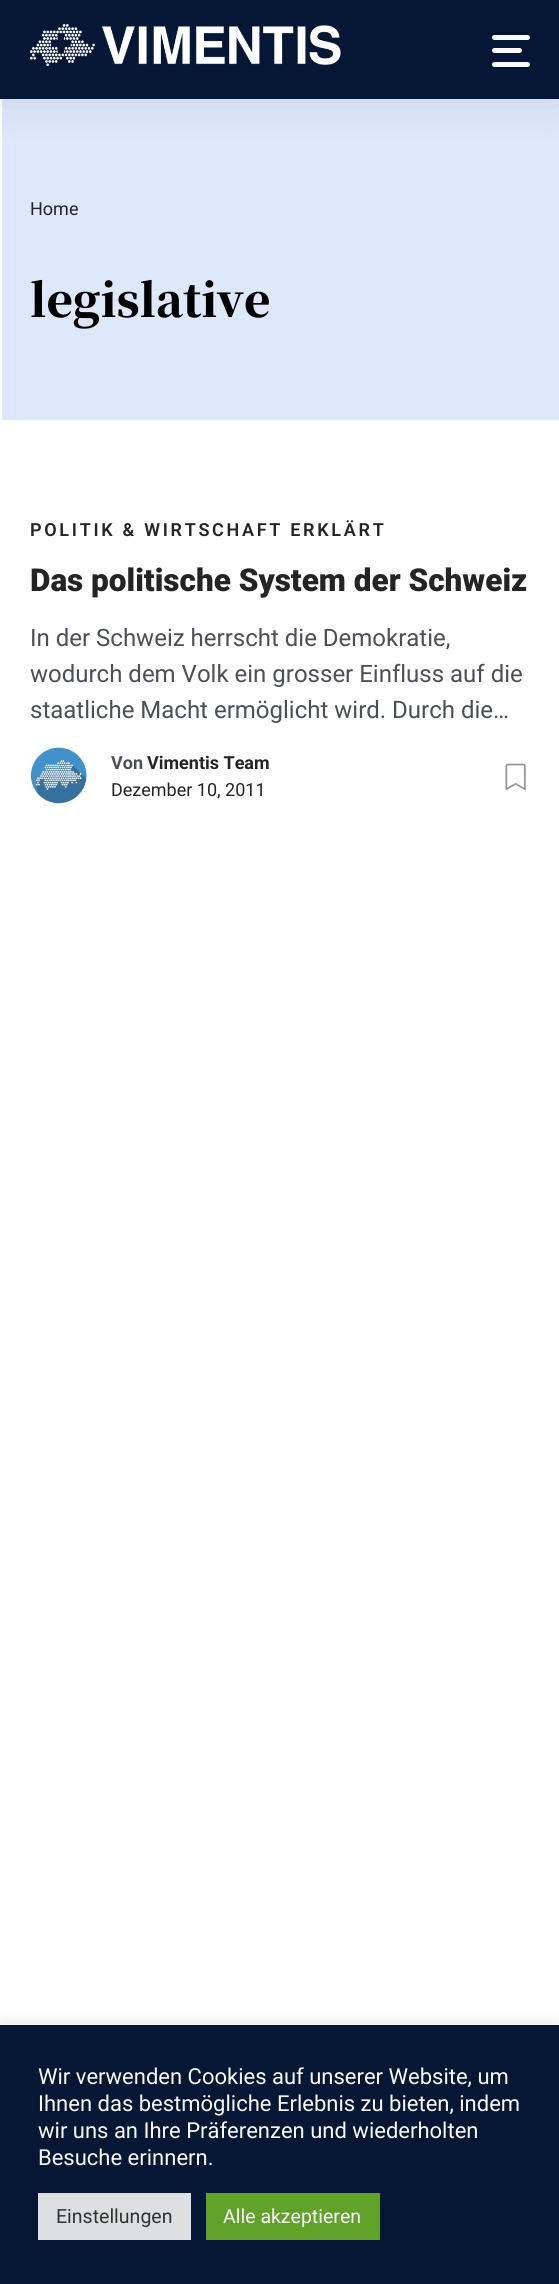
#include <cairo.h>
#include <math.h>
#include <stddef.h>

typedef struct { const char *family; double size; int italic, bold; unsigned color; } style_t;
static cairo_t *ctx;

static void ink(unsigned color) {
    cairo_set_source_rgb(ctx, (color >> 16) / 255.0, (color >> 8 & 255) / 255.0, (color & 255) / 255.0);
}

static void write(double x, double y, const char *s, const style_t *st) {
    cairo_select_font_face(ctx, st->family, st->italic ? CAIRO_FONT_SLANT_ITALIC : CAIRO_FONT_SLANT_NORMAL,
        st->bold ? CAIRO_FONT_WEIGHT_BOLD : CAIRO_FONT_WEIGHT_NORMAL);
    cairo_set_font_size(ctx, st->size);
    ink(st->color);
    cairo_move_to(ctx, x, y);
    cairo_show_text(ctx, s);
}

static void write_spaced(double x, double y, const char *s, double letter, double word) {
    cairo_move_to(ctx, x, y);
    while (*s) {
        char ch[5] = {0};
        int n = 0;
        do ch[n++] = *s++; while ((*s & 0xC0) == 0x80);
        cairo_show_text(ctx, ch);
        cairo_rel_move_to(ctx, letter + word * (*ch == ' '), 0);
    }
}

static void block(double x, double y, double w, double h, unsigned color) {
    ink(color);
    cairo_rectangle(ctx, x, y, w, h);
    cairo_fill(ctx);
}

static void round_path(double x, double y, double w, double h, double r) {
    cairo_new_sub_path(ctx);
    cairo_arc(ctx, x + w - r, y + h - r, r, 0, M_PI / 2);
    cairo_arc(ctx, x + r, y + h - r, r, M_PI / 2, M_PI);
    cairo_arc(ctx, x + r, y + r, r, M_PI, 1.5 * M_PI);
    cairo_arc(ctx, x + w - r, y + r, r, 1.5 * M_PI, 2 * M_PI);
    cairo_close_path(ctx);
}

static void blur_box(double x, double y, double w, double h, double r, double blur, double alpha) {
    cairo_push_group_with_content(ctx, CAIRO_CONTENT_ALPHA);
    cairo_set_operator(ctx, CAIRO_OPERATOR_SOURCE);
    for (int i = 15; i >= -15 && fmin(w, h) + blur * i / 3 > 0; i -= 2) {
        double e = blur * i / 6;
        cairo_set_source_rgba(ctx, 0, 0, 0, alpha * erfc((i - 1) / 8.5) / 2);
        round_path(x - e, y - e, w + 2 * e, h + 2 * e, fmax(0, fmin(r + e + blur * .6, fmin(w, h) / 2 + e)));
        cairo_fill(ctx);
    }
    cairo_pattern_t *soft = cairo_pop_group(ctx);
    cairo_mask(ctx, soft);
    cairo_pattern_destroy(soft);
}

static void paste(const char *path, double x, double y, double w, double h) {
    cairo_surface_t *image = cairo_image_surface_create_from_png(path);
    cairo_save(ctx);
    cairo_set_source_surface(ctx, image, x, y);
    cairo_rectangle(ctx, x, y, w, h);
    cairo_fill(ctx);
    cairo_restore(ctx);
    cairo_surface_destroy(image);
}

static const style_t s1 = {"Roboto", 18, 0, 0, 0x242424};
static const style_t s2 = {"Noto Serif JP Black", 45, 0, 0, 0x000000};
static const style_t s3 = {"Roboto Black", 31.5, 0, 0, 0x242424};
static const style_t s4 = {"Roboto", 24, 0, 0, 0x4b4f56};
static const style_t s5 = {"Roboto", 18, 0, 1, 0x4b4f56};
static const style_t s6 = {"Roboto", 18, 0, 1, 0x242424};
static const style_t s7 = {"Roboto", 22, 0, 0, 0xf9f9f9};
static const style_t s8 = {"Roboto", 19.5, 0, 0, 0x333333};
static const style_t s9 = {"Roboto", 19.5, 0, 0, 0xffffff};

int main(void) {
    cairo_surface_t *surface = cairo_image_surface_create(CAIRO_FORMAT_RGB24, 559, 2284);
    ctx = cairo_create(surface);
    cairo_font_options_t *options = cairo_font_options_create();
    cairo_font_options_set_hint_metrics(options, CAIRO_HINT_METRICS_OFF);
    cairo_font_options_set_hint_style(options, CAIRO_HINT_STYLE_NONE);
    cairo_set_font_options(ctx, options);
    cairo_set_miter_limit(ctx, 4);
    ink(0xffffff);
    cairo_paint(ctx);
    block(2, 99, 557, 321, 0xdde8fb);
    ink(0x000000);
    blur_box(0, 0, 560, 99, 0, 22.5, 0.1);
    block(0, 0, 559, 99, 0x061735);
    paste("pic1.png", 30, 24, 311, 42);
    ink(0xfafafa);
    round_path(492, 35, 38, 5, 2.5);
    cairo_fill(ctx);
    round_path(492, 48, 30, 5, 2.5);
    cairo_fill(ctx);
    round_path(492, 62, 38, 5, 2.5);
    cairo_fill(ctx);
    write(30, 215, "Home", &s1);
    write(30, 317, "legislative", &s2);
    cairo_select_font_face(ctx, "Roboto SemiBold", CAIRO_FONT_SLANT_NORMAL, CAIRO_FONT_WEIGHT_NORMAL);
    cairo_set_font_size(ctx, 18);
    ink(0x242424);
    write_spaced(30, 536, "POLITIK & WIRTSCHAFT ERKLÄRT", 2.7, 0);
    write(30, 591, "Das politische System der Schweiz", &s3);
    write(30, 646, "In der Schweiz herrscht die Demokratie,", &s4);
    write(30, 682, "wodurch dem Volk ein grosser Einfluss auf die", &s4);
    write(30, 718, "staatliche Macht ermöglicht wird. Durch die…", &s4);
    ink(0xfafafa);
    cairo_new_path(ctx);
    cairo_arc(ctx, 58.5, 775.5, 28.5, 0, 2 * M_PI);
    cairo_fill(ctx);
    paste("pic2.png", 30, 747, 57, 57);
    write(111, 769, "Von", &s5);
    write(147, 769, "Vimentis Team", &s6);
    write(111, 796, "Dezember 10, 2011", &s1);
    paste("pic3.png", 505, 763, 21, 28);
    ink(0xacabab);
    blur_box(0, 2024, 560, 259, 0, 7.5, 0.3);
    block(0, 2025, 559, 259, 0x061735);
    write(38, 2084, "Wir verwenden Cookies auf unserer Website, um", &s7);
    write(38, 2111, "Ihnen das bestmögliche Erlebnis zu bieten, indem", &s7);
    write(38, 2138, "wir uns an Ihre Präferenzen und wiederholten", &s7);
    write(38, 2165, "Besuche erinnern.", &s7);
    block(38, 2193, 153, 47, 0xdedfe0);
    write(56, 2223, "Einstellungen", &s8);
    block(206, 2193, 174, 47, 0x61a229);
    write(223, 2223, "Alle akzeptieren", &s9);
    cairo_surface_write_to_png(surface, "screenshot.png");
    cairo_font_options_destroy(options);
    cairo_destroy(ctx);
    cairo_surface_destroy(surface);
    return 0;
}
